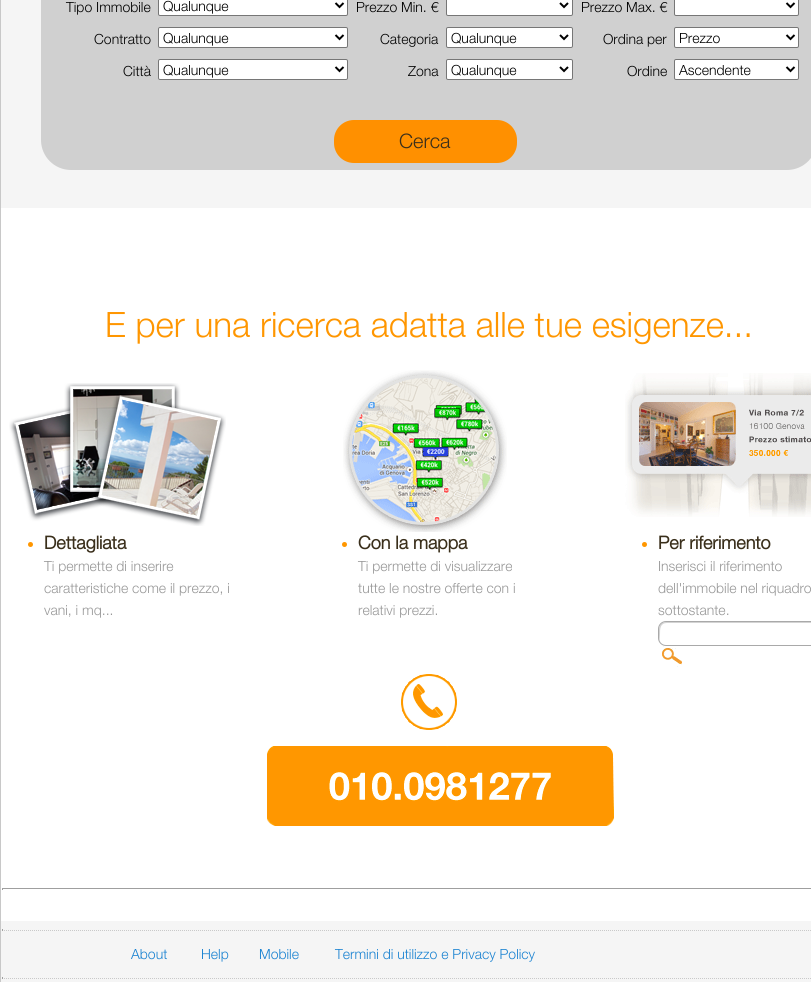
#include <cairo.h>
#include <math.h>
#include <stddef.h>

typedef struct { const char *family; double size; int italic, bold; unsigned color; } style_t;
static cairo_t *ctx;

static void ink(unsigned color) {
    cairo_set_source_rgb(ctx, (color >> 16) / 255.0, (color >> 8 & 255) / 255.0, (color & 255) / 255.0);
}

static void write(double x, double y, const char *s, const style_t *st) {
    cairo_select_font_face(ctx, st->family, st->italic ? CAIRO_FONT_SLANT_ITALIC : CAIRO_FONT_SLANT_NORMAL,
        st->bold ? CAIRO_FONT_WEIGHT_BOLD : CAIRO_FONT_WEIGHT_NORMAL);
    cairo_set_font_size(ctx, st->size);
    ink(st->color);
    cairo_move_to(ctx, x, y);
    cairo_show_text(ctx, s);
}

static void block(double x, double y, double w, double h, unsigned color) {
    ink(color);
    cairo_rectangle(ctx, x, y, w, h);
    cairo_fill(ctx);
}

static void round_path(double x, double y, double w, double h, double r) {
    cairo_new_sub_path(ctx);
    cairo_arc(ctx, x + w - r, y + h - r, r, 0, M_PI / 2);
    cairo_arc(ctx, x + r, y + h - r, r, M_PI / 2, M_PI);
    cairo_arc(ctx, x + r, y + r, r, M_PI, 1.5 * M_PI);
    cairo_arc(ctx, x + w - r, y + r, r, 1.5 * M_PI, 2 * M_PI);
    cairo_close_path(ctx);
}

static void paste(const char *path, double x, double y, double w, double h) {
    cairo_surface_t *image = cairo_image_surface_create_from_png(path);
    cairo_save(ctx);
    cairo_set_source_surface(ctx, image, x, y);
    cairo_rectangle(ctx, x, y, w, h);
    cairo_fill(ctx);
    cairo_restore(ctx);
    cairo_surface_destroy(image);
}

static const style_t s1 = {"Helvetica Neue Light", 14, 0, 0, 0x000000};
static const style_t s2 = {"Helvetica Neue Light", 20, 0, 0, 0x3a2f1b};
static const style_t s3 = {"Helvetica Neue Light", 35, 0, 0, 0xff9600};
static const style_t s4 = {"Helvetica Neue", 18, 0, 1, 0x3a2f1b};
static const style_t s5 = {"Helvetica Neue Light", 14, 0, 0, 0x989898};
static const style_t s6 = {"Helvetica Neue Light", 14, 0, 0, 0x1982d1};

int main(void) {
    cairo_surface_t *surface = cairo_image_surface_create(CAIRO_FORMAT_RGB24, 811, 982);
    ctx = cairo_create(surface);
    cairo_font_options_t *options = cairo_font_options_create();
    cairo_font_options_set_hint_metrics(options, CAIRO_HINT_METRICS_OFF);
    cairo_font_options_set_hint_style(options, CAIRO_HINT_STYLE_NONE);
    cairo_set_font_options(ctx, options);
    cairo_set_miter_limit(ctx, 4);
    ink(0xc8c8c8);
    cairo_paint(ctx);
    block(1, 208, 810, 713, 0xffffff);
    block(1, 0, 810, 208, 0xf5f5f5);
    ink(0xd0d0d0);
    round_path(41, -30, 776, 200, 30);
    cairo_fill(ctx);
    write(66, 12, "Tipo Immobile", &s1);
    ink(0xffffff);
    round_path(158.5, -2.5, 189, 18, 1.5);
    cairo_fill_preserve(ctx);
    ink(0x767676);
    cairo_set_line_width(ctx, 1);
    cairo_stroke(ctx);
    cairo_new_path(ctx);
    cairo_move_to(ctx, 335.5, 3);
    cairo_line_to(ctx, 339.5, 7);
    cairo_line_to(ctx, 343.5, 3);
    ink(0x000000);
    cairo_set_line_width(ctx, 2);
    cairo_stroke(ctx);
    write(163, 11, "Qualunque", &s1);
    write(356, 12, "Prezzo Min. €", &s1);
    ink(0xffffff);
    round_path(446.5, -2.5, 126, 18, 1.5);
    cairo_fill_preserve(ctx);
    ink(0x767676);
    cairo_set_line_width(ctx, 1);
    cairo_stroke(ctx);
    cairo_new_path(ctx);
    cairo_move_to(ctx, 560, 3);
    cairo_line_to(ctx, 564, 7);
    cairo_line_to(ctx, 568, 3);
    ink(0x000000);
    cairo_set_line_width(ctx, 2);
    cairo_stroke(ctx);
    write(581, 12, "Prezzo Max. €", &s1);
    ink(0xffffff);
    round_path(674.5, -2.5, 124, 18, 1.5);
    cairo_fill_preserve(ctx);
    ink(0x767676);
    cairo_set_line_width(ctx, 1);
    cairo_stroke(ctx);
    cairo_new_path(ctx);
    cairo_move_to(ctx, 786.5, 3);
    cairo_line_to(ctx, 790.5, 7);
    cairo_line_to(ctx, 794.5, 3);
    ink(0x000000);
    cairo_set_line_width(ctx, 2);
    cairo_stroke(ctx);
    write(94, 44, "Contratto", &s1);
    ink(0xffffff);
    round_path(158.5, 27.5, 189, 20, 1.5);
    cairo_fill_preserve(ctx);
    ink(0x767676);
    cairo_set_line_width(ctx, 1);
    cairo_stroke(ctx);
    cairo_new_path(ctx);
    cairo_move_to(ctx, 335.5, 35);
    cairo_line_to(ctx, 339.5, 39);
    cairo_line_to(ctx, 343.5, 35);
    ink(0x000000);
    cairo_set_line_width(ctx, 2);
    cairo_stroke(ctx);
    write(163, 43, "Qualunque", &s1);
    write(380, 44, "Categoria", &s1);
    ink(0xffffff);
    round_path(446.5, 27.5, 126, 20, 1.5);
    cairo_fill_preserve(ctx);
    ink(0x767676);
    cairo_set_line_width(ctx, 1);
    cairo_stroke(ctx);
    cairo_new_path(ctx);
    cairo_move_to(ctx, 560, 35);
    cairo_line_to(ctx, 564, 39);
    cairo_line_to(ctx, 568, 35);
    ink(0x000000);
    cairo_set_line_width(ctx, 2);
    cairo_stroke(ctx);
    write(451, 43, "Qualunque", &s1);
    write(603, 44, "Ordina per", &s1);
    ink(0xffffff);
    round_path(674.5, 27.5, 124, 20, 1.5);
    cairo_fill_preserve(ctx);
    ink(0x767676);
    cairo_set_line_width(ctx, 1);
    cairo_stroke(ctx);
    cairo_new_path(ctx);
    cairo_move_to(ctx, 786.5, 35);
    cairo_line_to(ctx, 790.5, 39);
    cairo_line_to(ctx, 794.5, 35);
    ink(0x000000);
    cairo_set_line_width(ctx, 2);
    cairo_stroke(ctx);
    write(679, 43, "Prezzo", &s1);
    write(123, 76, "Città", &s1);
    ink(0xffffff);
    round_path(158.5, 59.5, 189, 20, 1.5);
    cairo_fill_preserve(ctx);
    ink(0x767676);
    cairo_set_line_width(ctx, 1);
    cairo_stroke(ctx);
    cairo_new_path(ctx);
    cairo_move_to(ctx, 335.5, 67);
    cairo_line_to(ctx, 339.5, 71);
    cairo_line_to(ctx, 343.5, 67);
    ink(0x000000);
    cairo_set_line_width(ctx, 2);
    cairo_stroke(ctx);
    write(163, 75, "Qualunque", &s1);
    write(408, 76, "Zona", &s1);
    ink(0xffffff);
    round_path(446.5, 59.5, 126, 20, 1.5);
    cairo_fill_preserve(ctx);
    ink(0x767676);
    cairo_set_line_width(ctx, 1);
    cairo_stroke(ctx);
    cairo_new_path(ctx);
    cairo_move_to(ctx, 560, 67);
    cairo_line_to(ctx, 564, 71);
    cairo_line_to(ctx, 568, 67);
    ink(0x000000);
    cairo_set_line_width(ctx, 2);
    cairo_stroke(ctx);
    write(451, 75, "Qualunque", &s1);
    write(627, 76, "Ordine", &s1);
    ink(0xffffff);
    round_path(674.5, 59.5, 124, 20, 1.5);
    cairo_fill_preserve(ctx);
    ink(0x767676);
    cairo_set_line_width(ctx, 1);
    cairo_stroke(ctx);
    cairo_new_path(ctx);
    cairo_move_to(ctx, 786.5, 67);
    cairo_line_to(ctx, 790.5, 71);
    cairo_line_to(ctx, 794.5, 67);
    ink(0x000000);
    cairo_set_line_width(ctx, 2);
    cairo_stroke(ctx);
    write(679, 75, "Ascendente", &s1);
    ink(0xff9000);
    round_path(334, 120, 183, 43, 20);
    cairo_fill(ctx);
    write(399, 148, "Cerca", &s2);
    write(105, 337, "E per una ricerca adatta alle tue esigenze...", &s3);
    paste("pic1.png", 9, 383, 217, 143);
    cairo_arc(ctx, 30.5, 544.5, 2.5, 0, 2 * M_PI);
    cairo_fill(ctx);
    write(44, 549, "Dettagliata", &s4);
    write(44, 571, "Ti permette di inserire", &s5);
    write(44, 593, "caratteristiche come il prezzo, i", &s5);
    write(44, 615, "vani, i mq...", &s5);
    paste("pic2.png", 343, 370, 164, 162);
    ink(0xff9600);
    cairo_arc(ctx, 344.5, 544.5, 2.5, 0, 2 * M_PI);
    cairo_fill(ctx);
    write(358, 549, "Con la mappa", &s4);
    write(358, 571, "Ti permette di visualizzare", &s5);
    write(358, 593, "tutte le nostre offerte con i", &s5);
    write(358, 615, "relativi prezzi.", &s5);
    paste("pic3.png", 267, 674, 347, 152);
    paste("pic4.png", 625, 373, 186, 144);
    ink(0xff9600);
    cairo_arc(ctx, 644.5, 544.5, 2.5, 0, 2 * M_PI);
    cairo_fill(ctx);
    write(658, 549, "Per riferimento", &s4);
    write(658, 571, "Inserisci il riferimento", &s5);
    write(658, 593, "dell'immobile nel riquadro", &s5);
    write(658, 615, "sottostante.", &s5);
    ink(0xd3d3d3);
    cairo_new_path(ctx);
    cairo_move_to(ctx, 667, 623);
    cairo_line_to(ctx, 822, 623);
    cairo_curve_to(ctx, 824, 623, 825, 623, 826, 624);
    cairo_curve_to(ctx, 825, 623, 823, 622, 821, 622);
    cairo_line_to(ctx, 666, 622);
    cairo_curve_to(ctx, 662, 622, 659, 625, 659, 629);
    cairo_line_to(ctx, 659, 638);
    cairo_curve_to(ctx, 659, 640, 660, 642, 661, 643);
    cairo_curve_to(ctx, 659, 641, 660, 637, 660, 634);
    cairo_curve_to(ctx, 660, 629, 660, 623, 667, 623);
    cairo_close_path(ctx);
    cairo_fill(ctx);
    round_path(658.5, 621.5, 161, 24, 7.5);
    ink(0xa9a9a9);
    cairo_set_line_width(ctx, 1);
    cairo_stroke(ctx);
    paste("pic5.png", 662, 646, 20, 21);
    block(2, 888, 809, 1, 0x9f9f9f);
    block(2, 888, 1, 2, 0x9f9f9f);
    block(1, 921, 810, 61, 0xf5f5f5);
    cairo_new_path(ctx);
    cairo_move_to(ctx, 2, 930.5);
    cairo_line_to(ctx, 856, 930.5);
    ink(0xc9c9c9);
    cairo_set_dash(ctx, (double[]){1, 1}, 2, 0);
    cairo_stroke(ctx);
    block(2, 929, 1, 2, 0x9f9f9f);
    write(131, 959, "About", &s6);
    write(201, 959, "Help", &s6);
    write(259, 959, "Mobile", &s6);
    write(335, 959, "Termini di utilizzo e Privacy Policy", &s6);
    cairo_new_path(ctx);
    cairo_move_to(ctx, 2, 978.5);
    cairo_line_to(ctx, 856, 978.5);
    ink(0xc9c9c9);
    cairo_stroke(ctx);
    block(2, 977, 1, 2, 0x9f9f9f);
    cairo_surface_write_to_png(surface, "screenshot.png");
    cairo_font_options_destroy(options);
    cairo_destroy(ctx);
    cairo_surface_destroy(surface);
    return 0;
}
